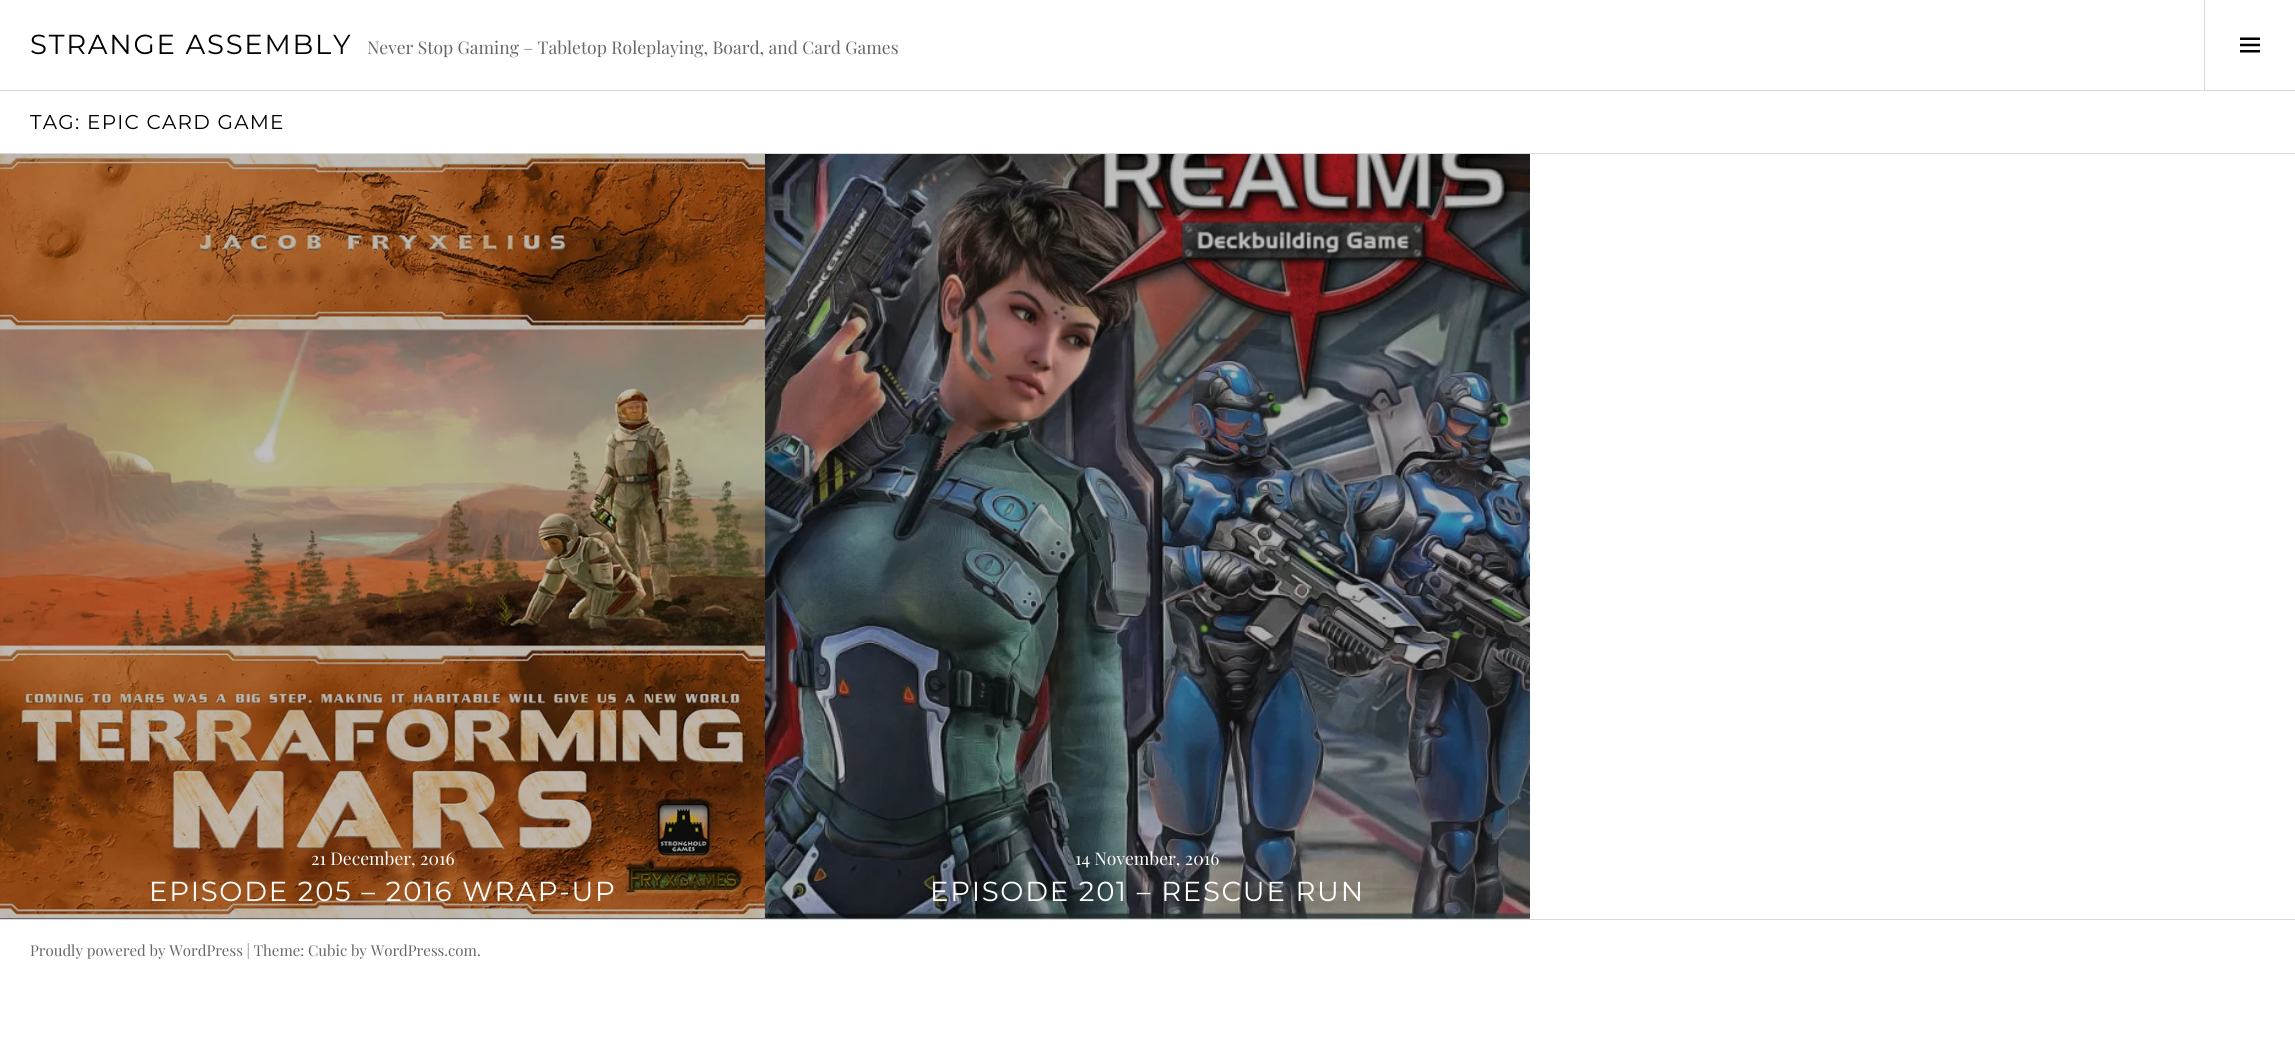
#include <cairo.h>
#include <math.h>
#include <stddef.h>

typedef struct { const char *family; double size; int italic, bold; unsigned color; } style_t;
static cairo_t *ctx;

static void ink(unsigned color) {
    cairo_set_source_rgb(ctx, (color >> 16) / 255.0, (color >> 8 & 255) / 255.0, (color & 255) / 255.0);
}

static void write(double x, double y, const char *s, const style_t *st) {
    cairo_select_font_face(ctx, st->family, st->italic ? CAIRO_FONT_SLANT_ITALIC : CAIRO_FONT_SLANT_NORMAL,
        st->bold ? CAIRO_FONT_WEIGHT_BOLD : CAIRO_FONT_WEIGHT_NORMAL);
    cairo_set_font_size(ctx, st->size);
    ink(st->color);
    cairo_move_to(ctx, x, y);
    cairo_show_text(ctx, s);
}

static void write_spaced(double x, double y, const char *s, double letter, double word) {
    cairo_move_to(ctx, x, y);
    while (*s) {
        char ch[5] = {0};
        int n = 0;
        do ch[n++] = *s++; while ((*s & 0xC0) == 0x80);
        cairo_show_text(ctx, ch);
        cairo_rel_move_to(ctx, letter + word * (*ch == ' '), 0);
    }
}

static void block(double x, double y, double w, double h, unsigned color) {
    ink(color);
    cairo_rectangle(ctx, x, y, w, h);
    cairo_fill(ctx);
}

static void paste(const char *path, double x, double y, double w, double h) {
    cairo_surface_t *image = cairo_image_surface_create_from_png(path);
    cairo_save(ctx);
    cairo_set_source_surface(ctx, image, x, y);
    cairo_rectangle(ctx, x, y, w, h);
    cairo_fill(ctx);
    cairo_restore(ctx);
    cairo_surface_destroy(image);
}

static const style_t s1 = {"Playfair Display", 17.5, 0, 0, 0x666666};
static const style_t s2 = {"Playfair Display", 17.5, 0, 0, 0xffffff};
static const style_t s3 = {"Playfair Display", 15, 0, 0, 0x666666};

int main(void) {
    cairo_surface_t *surface = cairo_image_surface_create(CAIRO_FORMAT_RGB24, 2295, 1062);
    ctx = cairo_create(surface);
    cairo_font_options_t *options = cairo_font_options_create();
    cairo_font_options_set_hint_metrics(options, CAIRO_HINT_METRICS_OFF);
    cairo_font_options_set_hint_style(options, CAIRO_HINT_STYLE_NONE);
    cairo_set_font_options(ctx, options);
    cairo_set_miter_limit(ctx, 4);
    ink(0xffffff);
    cairo_paint(ctx);
    block(0, 90, 2295, 1, 0xd9d9d9);
    cairo_select_font_face(ctx, "Montserrat", CAIRO_FONT_SLANT_NORMAL, CAIRO_FONT_WEIGHT_NORMAL);
    cairo_set_font_size(ctx, 27.5);
    ink(0x000000);
    write_spaced(30, 54, "STRANGE ASSEMBLY", 1.75, 0);
    write(367, 54, "Never Stop Gaming – Tabletop Roleplaying, Board, and Card Games", &s1);
    block(2204, 0, 1, 90, 0xd9d9d9);
    paste("pic1.png", 2240, 37, 20, 16);
    block(0, 153, 2295, 1, 0xd9d9d9);
    cairo_select_font_face(ctx, "Montserrat", CAIRO_FONT_SLANT_NORMAL, CAIRO_FONT_WEIGHT_NORMAL);
    cairo_set_font_size(ctx, 20);
    ink(0x000000);
    write_spaced(30, 129, "TAG: EPIC CARD GAME", 1.25, 0);
    block(0, 154, 765, 765, 0x000000);
    paste("pic2.png", 0, 154, 765, 765);
    write(311, 865, "21 December, 2016", &s2);
    cairo_select_font_face(ctx, "Montserrat", CAIRO_FONT_SLANT_NORMAL, CAIRO_FONT_WEIGHT_NORMAL);
    cairo_set_font_size(ctx, 27.5);
    write_spaced(149, 901, "EPISODE 205 – 2016 WRAP-UP", 1.75, 0);
    paste("pic3.png", 765, 154, 765, 765);
    write(1075, 865, "14 November, 2016", &s2);
    cairo_select_font_face(ctx, "Montserrat", CAIRO_FONT_SLANT_NORMAL, CAIRO_FONT_WEIGHT_NORMAL);
    cairo_set_font_size(ctx, 27.5);
    write_spaced(930, 901, "EPISODE 201 – RESCUE RUN", 1.75, 0);
    block(0, 919, 2295, 1, 0xd9d9d9);
    write(30, 956, "Proudly powered by WordPress | Theme: Cubic by WordPress.com.", &s3);
    cairo_surface_write_to_png(surface, "screenshot.png");
    cairo_font_options_destroy(options);
    cairo_destroy(ctx);
    cairo_surface_destroy(surface);
    return 0;
}
